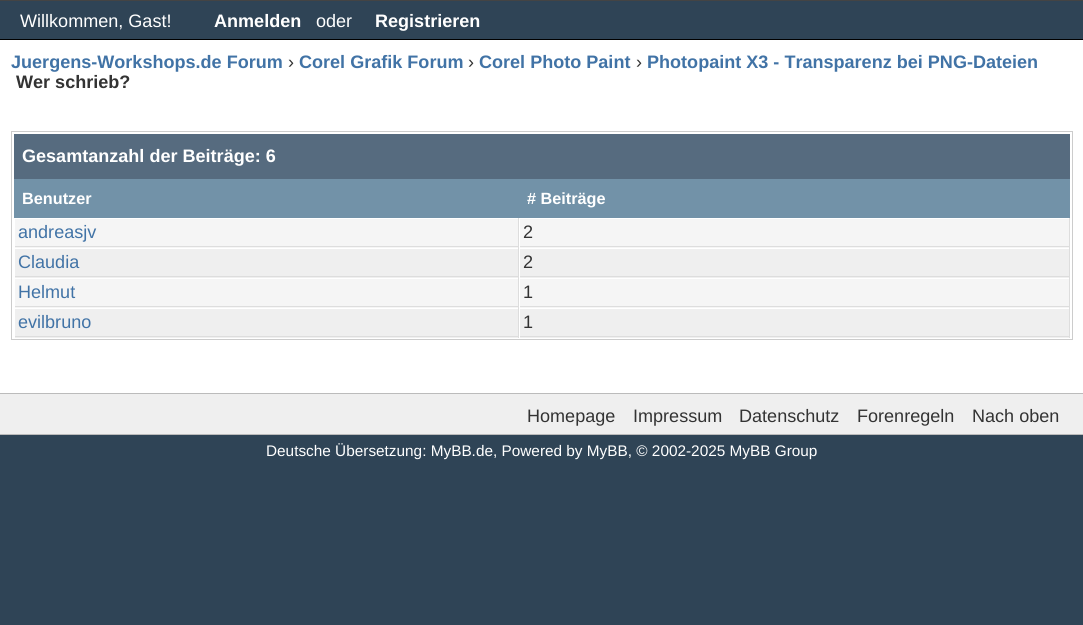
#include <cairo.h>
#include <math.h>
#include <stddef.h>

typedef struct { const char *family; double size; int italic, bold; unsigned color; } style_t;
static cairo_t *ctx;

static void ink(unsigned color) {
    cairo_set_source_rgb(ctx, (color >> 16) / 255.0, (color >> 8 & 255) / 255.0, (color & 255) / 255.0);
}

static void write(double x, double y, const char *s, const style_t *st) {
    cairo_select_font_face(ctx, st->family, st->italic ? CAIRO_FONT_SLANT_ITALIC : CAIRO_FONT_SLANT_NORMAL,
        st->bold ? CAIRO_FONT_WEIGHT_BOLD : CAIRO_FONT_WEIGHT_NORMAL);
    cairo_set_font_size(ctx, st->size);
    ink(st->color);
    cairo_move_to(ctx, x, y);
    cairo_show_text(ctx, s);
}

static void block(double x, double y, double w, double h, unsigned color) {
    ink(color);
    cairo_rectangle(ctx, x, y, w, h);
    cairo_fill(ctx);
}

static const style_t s1 = {"Liberation Sans", 18.05, 0, 0, 0xffffff};
static const style_t s2 = {"Liberation Sans", 18.05, 0, 1, 0xffffff};
static const style_t s3 = {"Liberation Sans", 18.05, 0, 1, 0x4173a6};
static const style_t s4 = {"Liberation Sans", 18.05, 0, 0, 0x333333};
static const style_t s5 = {"Liberation Sans", 18.05, 0, 1, 0x333333};
static const style_t s6 = {"Liberation Sans", 16.25, 0, 1, 0xffffff};
static const style_t s7 = {"Liberation Sans", 18.05, 0, 0, 0x4173a6};
static const style_t s8 = {"Liberation Sans", 15.35, 0, 0, 0xffffff};

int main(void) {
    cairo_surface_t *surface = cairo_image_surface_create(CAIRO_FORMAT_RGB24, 1083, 625);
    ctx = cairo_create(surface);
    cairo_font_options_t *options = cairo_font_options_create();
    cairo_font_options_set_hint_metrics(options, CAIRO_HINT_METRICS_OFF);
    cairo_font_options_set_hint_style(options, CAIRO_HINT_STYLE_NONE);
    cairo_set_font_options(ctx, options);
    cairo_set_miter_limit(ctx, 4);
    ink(0x2f4456);
    cairo_paint(ctx);
    block(0, 0, 1083, 1, 0x444444);
    block(0, 39, 1083, 1, 0x000000);
    write(20, 27, "Willkommen, Gast!", &s1);
    write(214, 27, "Anmelden", &s2);
    write(316, 27, "oder", &s1);
    write(375, 27, "Registrieren", &s2);
    block(0, 40, 1083, 353, 0xffffff);
    write(11, 68, "Juergens-Workshops.de Forum", &s3);
    write(288, 68, "›", &s4);
    write(299, 68, "Corel Grafik Forum", &s3);
    write(468, 68, "›", &s4);
    write(479, 68, "Corel Photo Paint", &s3);
    write(636, 68, "›", &s4);
    write(647, 68, "Photopaint X3 - Transparenz bei PNG-Dateien", &s3);
    write(16, 88, "Wer schrieb?", &s5);
    cairo_rectangle(ctx, 11.5, 131.5, 1061, 208);
    ink(0xcccccc);
    cairo_set_line_width(ctx, 1);
    cairo_stroke(ctx);
    block(14, 134, 1056, 45, 0x566b7f);
    write(22, 162, "Gesamtanzahl der Beiträge: 6", &s2);
    block(14, 179, 1056, 39, 0x7292a8);
    write(22, 204, "Benutzer", &s6);
    write(527, 204, "# Beiträge", &s6);
    block(15, 219, 503, 29, 0xf5f5f5);
    block(518, 218, 1, 120, 0xdddddd);
    block(14, 246, 505, 1, 0xdddddd);
    block(14, 246, 1, 2, 0xffffff);
    write(18, 238, "andreasjv", &s7);
    block(520, 219, 549, 29, 0xf5f5f5);
    block(1069, 218, 1, 120, 0xdddddd);
    block(519, 246, 551, 1, 0xdddddd);
    block(519, 246, 1, 2, 0xffffff);
    write(523, 238, "2", &s4);
    block(15, 249, 503, 29, 0xefefef);
    block(14, 276, 505, 1, 0xdddddd);
    block(14, 276, 1, 2, 0xffffff);
    write(18, 268, "Claudia", &s7);
    block(520, 249, 549, 29, 0xefefef);
    block(519, 276, 551, 1, 0xdddddd);
    block(519, 276, 1, 2, 0xffffff);
    write(523, 268, "2", &s4);
    block(15, 279, 503, 29, 0xf5f5f5);
    block(14, 306, 505, 1, 0xdddddd);
    block(14, 306, 1, 2, 0xffffff);
    write(18, 298, "Helmut", &s7);
    block(520, 279, 549, 29, 0xf5f5f5);
    block(519, 306, 551, 1, 0xdddddd);
    block(519, 306, 1, 2, 0xffffff);
    write(523, 298, "1", &s4);
    block(15, 309, 503, 29, 0xefefef);
    block(14, 336, 505, 1, 0xdddddd);
    block(14, 336, 1, 2, 0xffffff);
    write(18, 328, "evilbruno", &s7);
    block(520, 309, 549, 29, 0xefefef);
    block(519, 336, 551, 1, 0xdddddd);
    block(519, 336, 1, 2, 0xffffff);
    write(523, 328, "1", &s4);
    block(0, 394, 1083, 40, 0xefefef);
    block(0, 393, 1083, 1, 0xbbbbbb);
    block(0, 434, 1083, 1, 0xbbbbbb);
    write(527, 422, "Homepage", &s4);
    write(633, 422, "Impressum", &s4);
    write(739, 422, "Datenschutz", &s4);
    write(857, 422, "Forenregeln", &s4);
    write(972, 422, "Nach oben", &s4);
    write(266, 456, "Deutsche Übersetzung: MyBB.de, Powered by MyBB, © 2002-2025 MyBB Group", &s8);
    cairo_surface_write_to_png(surface, "screenshot.png");
    cairo_font_options_destroy(options);
    cairo_destroy(ctx);
    cairo_surface_destroy(surface);
    return 0;
}
